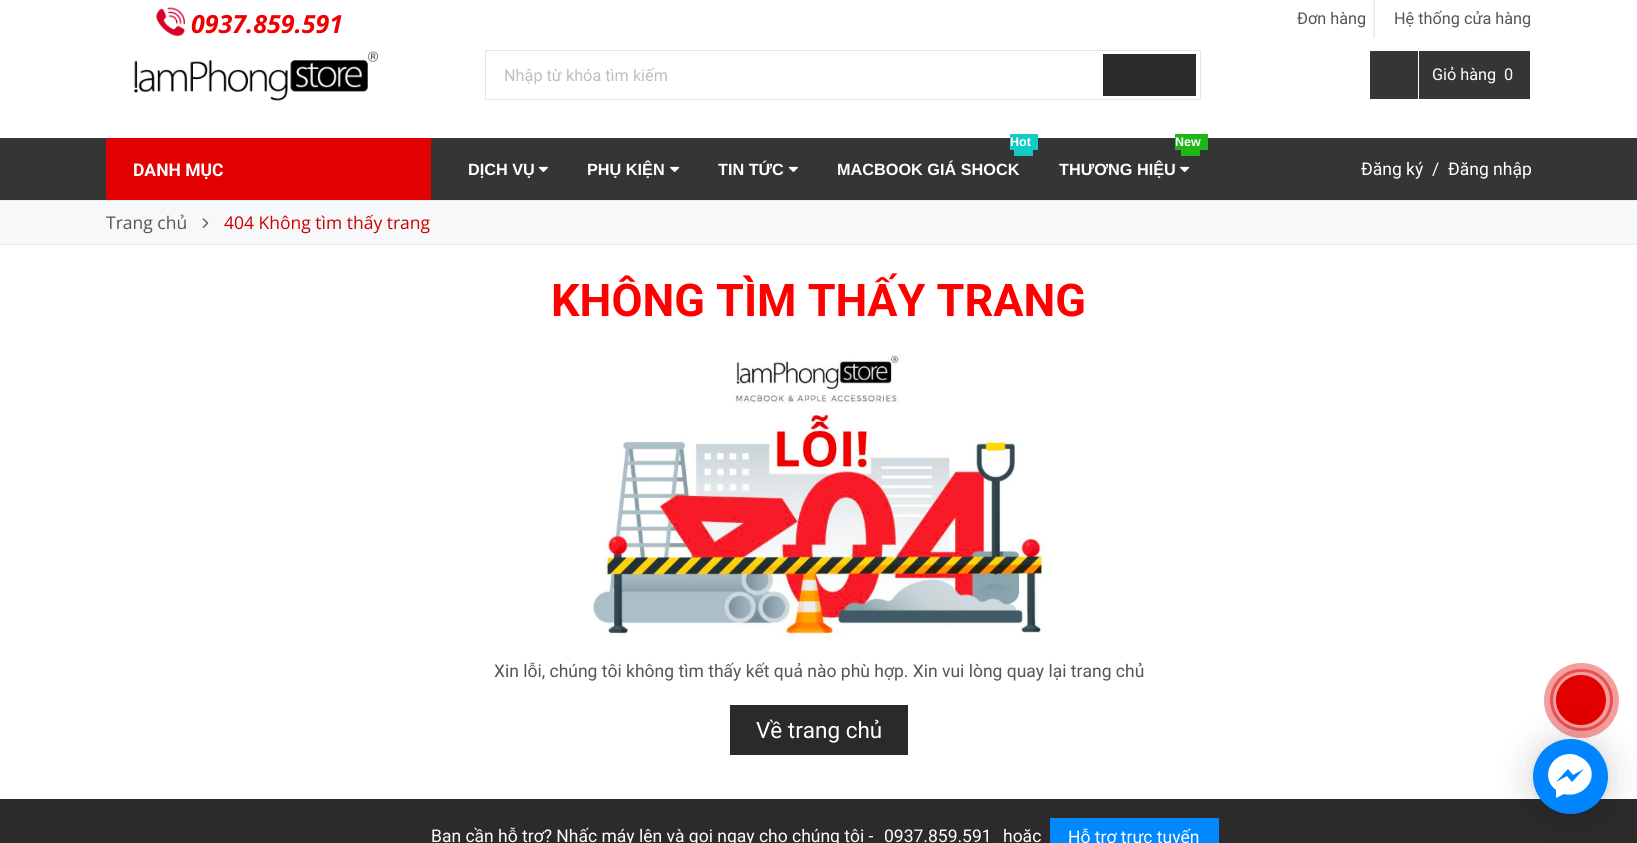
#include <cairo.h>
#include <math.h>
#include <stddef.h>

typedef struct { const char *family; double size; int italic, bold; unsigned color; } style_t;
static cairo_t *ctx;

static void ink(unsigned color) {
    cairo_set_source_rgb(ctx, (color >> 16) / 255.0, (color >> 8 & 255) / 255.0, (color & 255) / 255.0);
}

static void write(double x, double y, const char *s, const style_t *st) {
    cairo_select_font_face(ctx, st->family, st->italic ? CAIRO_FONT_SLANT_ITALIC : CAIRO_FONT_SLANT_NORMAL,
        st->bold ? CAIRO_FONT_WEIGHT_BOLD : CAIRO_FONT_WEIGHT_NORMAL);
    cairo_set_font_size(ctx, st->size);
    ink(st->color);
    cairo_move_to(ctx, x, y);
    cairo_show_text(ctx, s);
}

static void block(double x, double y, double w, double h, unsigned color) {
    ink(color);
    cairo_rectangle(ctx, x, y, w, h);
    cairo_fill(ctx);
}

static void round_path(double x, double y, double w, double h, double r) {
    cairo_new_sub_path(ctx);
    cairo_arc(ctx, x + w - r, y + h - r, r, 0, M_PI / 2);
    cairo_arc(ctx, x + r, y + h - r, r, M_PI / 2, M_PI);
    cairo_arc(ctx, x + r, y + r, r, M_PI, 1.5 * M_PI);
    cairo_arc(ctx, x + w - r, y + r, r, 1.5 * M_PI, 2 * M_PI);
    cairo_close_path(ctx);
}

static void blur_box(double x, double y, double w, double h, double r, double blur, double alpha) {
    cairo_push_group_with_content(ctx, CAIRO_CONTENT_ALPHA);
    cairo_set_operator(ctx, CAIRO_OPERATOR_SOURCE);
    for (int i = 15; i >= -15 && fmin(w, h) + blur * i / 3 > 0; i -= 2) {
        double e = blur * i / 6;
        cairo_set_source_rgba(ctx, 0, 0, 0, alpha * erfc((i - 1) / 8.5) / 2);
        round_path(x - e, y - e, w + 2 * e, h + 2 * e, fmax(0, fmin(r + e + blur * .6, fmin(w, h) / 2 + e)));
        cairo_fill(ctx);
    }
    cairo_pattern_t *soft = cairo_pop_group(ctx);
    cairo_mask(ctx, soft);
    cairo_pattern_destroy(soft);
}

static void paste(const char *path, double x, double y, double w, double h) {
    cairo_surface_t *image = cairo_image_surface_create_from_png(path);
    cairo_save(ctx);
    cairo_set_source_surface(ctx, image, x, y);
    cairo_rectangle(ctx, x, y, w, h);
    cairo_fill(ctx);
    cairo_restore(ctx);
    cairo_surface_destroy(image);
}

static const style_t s1 = {"Open Sans", 25, 1, 1, 0xef0000};
static const style_t s2 = {"Roboto", 16.25, 0, 0, 0x555555};
static const style_t s3 = {"Roboto", 16.25, 0, 0, 0xbdbdc6};
static const style_t s4 = {"Roboto", 16.25, 0, 0, 0xffffff};
static const style_t s5 = {"Roboto", 17.5, 0, 1, 0xffffff};
static const style_t s6 = {"Liberation Sans", 16.25, 0, 1, 0xffffff};
static const style_t s7 = {"Liberation Sans", 12.5, 0, 1, 0xffffff};
static const style_t s8 = {"Roboto", 17.5, 0, 0, 0xffffff};
static const style_t s9 = {"Open Sans", 17.5, 0, 0, 0x555555};
static const style_t s10 = {"Open Sans", 17.5, 0, 0, 0xcc0000};
static const style_t s11 = {"Roboto", 45, 0, 1, 0xff0000};
static const style_t s12 = {"Roboto", 17.5, 0, 0, 0x555555};
static const style_t s13 = {"Roboto", 22.5, 0, 0, 0xffffff};

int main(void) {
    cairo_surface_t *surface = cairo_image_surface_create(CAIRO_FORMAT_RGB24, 1637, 843);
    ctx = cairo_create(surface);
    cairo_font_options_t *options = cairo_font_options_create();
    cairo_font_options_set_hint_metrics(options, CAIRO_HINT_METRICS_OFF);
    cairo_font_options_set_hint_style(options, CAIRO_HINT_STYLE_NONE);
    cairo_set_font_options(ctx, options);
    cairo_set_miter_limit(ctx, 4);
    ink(0xffffff);
    cairo_paint(ctx);
    paste("pic1.png", 156, 7, 29, 30);
    write(191, 33, "0937.859.591", &s1);
    block(1373, 0, 1, 38, 0xf2f2f2);
    write(1297, 24, "Đơn hàng", &s2);
    block(1374, 0, 1, 38, 0xebebeb);
    write(1394, 24, "Hệ thống cửa hàng", &s2);
    paste("pic2.png", 133, 51, 245, 50);
    cairo_rectangle(ctx, 485.5, 50.5, 715, 49);
    ink(0xe5e6ec);
    cairo_set_line_width(ctx, 1);
    cairo_stroke(ctx);
    write(504, 81, "Nhập từ khóa tìm kiếm", &s3);
    block(1103, 54, 93, 42, 0x2b2b2b);
    block(1370, 51, 160, 48, 0x363535);
    block(1418, 50, 1, 50, 0xffffff);
    write(1432, 80, "Giỏ hàng", &s4);
    write(1504, 80, "0", &s4);
    block(0, 138, 1637, 62, 0x363535);
    block(106, 138, 325, 62, 0xe20000);
    write(133, 176, "DANH MỤC", &s5);
    write(468, 175, "DỊCH VỤ", &s6);
    paste("pic3.png", 538, 166, 10, 6);
    write(587, 175, "PHỤ KIỆN", &s6);
    paste("pic4.png", 670, 166, 10, 6);
    write(718, 175, "TIN TỨC", &s6);
    paste("pic3.png", 788, 166, 10, 6);
    block(1010, 134, 28, 16, 0x12cbc4);
    write(1010, 146, "Hot", &s7);
    block(1014, 150, 19, 6, 0x12cbc4);
    write(837, 175, "MACBOOK GIÁ SHOCK", &s6);
    block(1175, 134, 33, 16, 0x20b619);
    write(1175, 146, "New", &s7);
    block(1181, 150, 19, 6, 0x20b619);
    write(1059, 175, "THƯƠNG HIỆU", &s6);
    paste("pic4.png", 1180, 166, 10, 6);
    write(1361, 175, "Đăng ký", &s8);
    write(1432, 175, "/", &s8);
    write(1448, 175, "Đăng nhập", &s8);
    block(0, 201, 1637, 43, 0xf7f8f9);
    block(0, 200, 1637, 1, 0xebebeb);
    block(0, 244, 1637, 1, 0xebebeb);
    write(106, 229, "Trang chủ", &s9);
    paste("pic5.png", 202, 218, 7, 10);
    write(224, 229, "404 Không tìm thấy trang", &s10);
    write(551, 316, "KHÔNG TÌM THẤY TRANG", &s11);
    paste("pic6.png", 593, 354, 457, 284);
    write(494, 677, "Xin lỗi, chúng tôi không tìm thấy kết quả nào phù hợp. Xin vui lòng quay lại trang chủ", &s12);
    block(730, 705, 178, 50, 0x2a2a2a);
    write(756, 738, "Về trang chủ", &s13);
    round_path(1551.5, 670.5, 60, 59, 29.5);
    ink(0xf18080);
    cairo_set_line_width(ctx, 3);
    cairo_stroke(ctx);
    cairo_set_source_rgba(ctx, 0.886, 0, 0, 0.38);
    cairo_arc(ctx, 1581.5, 700.5, 37.5, 0, 2 * M_PI);
    cairo_fill(ctx);
    ink(0xe20000);
    cairo_arc(ctx, 1581, 700, 25, 0, 2 * M_PI);
    cairo_fill(ctx);
    block(0, 799, 1637, 44, 0x2b2b2b);
    write(431, 842, "Bạn cần hỗ trợ? Nhấc máy lên và gọi ngay cho chúng tôi -", &s8);
    write(884, 842, "0937.859.591", &s8);
    write(1003, 842, "hoặc", &s8);
    block(1050, 818, 169, 25, 0x0089ff);
    write(1068, 843, "Hỗ trợ trực tuyến", &s8);
    ink(0x000000);
    blur_box(1533, 741, 75, 75, 37.5, 20, 0.16);
    blur_box(1533, 740, 75, 75, 37.5, 4, 0.06);
    ink(0x0084ff);
    cairo_arc(ctx, 1570.5, 776.5, 37.5, 0, 2 * M_PI);
    cairo_fill(ctx);
    cairo_save(ctx);
    round_path(1533, 739, 75, 75, 37.5);
    cairo_clip(ctx);
    block(1540, 746, 60, 60, 0x0084ff);
    cairo_restore(ctx);
    ink(0xffffff);
    cairo_new_path(ctx);
    cairo_move_to(ctx, 1570, 754);
    cairo_curve_to(ctx, 1550, 754, 1540, 778, 1556, 790);
    cairo_line_to(ctx, 1556, 798);
    cairo_line_to(ctx, 1564, 794);
    cairo_curve_to(ctx, 1584, 799, 1602, 776, 1585, 760);
    cairo_curve_to(ctx, 1581, 757, 1576, 754, 1570, 754);
    cairo_close_path(ctx);
    cairo_move_to(ctx, 1572, 782);
    cairo_line_to(ctx, 1567, 776);
    cairo_line_to(ctx, 1556, 782);
    cairo_line_to(ctx, 1568, 769);
    cairo_line_to(ctx, 1573, 775);
    cairo_line_to(ctx, 1584, 769);
    cairo_close_path(ctx);
    cairo_fill(ctx);
    cairo_surface_write_to_png(surface, "screenshot.png");
    cairo_font_options_destroy(options);
    cairo_destroy(ctx);
    cairo_surface_destroy(surface);
    return 0;
}
